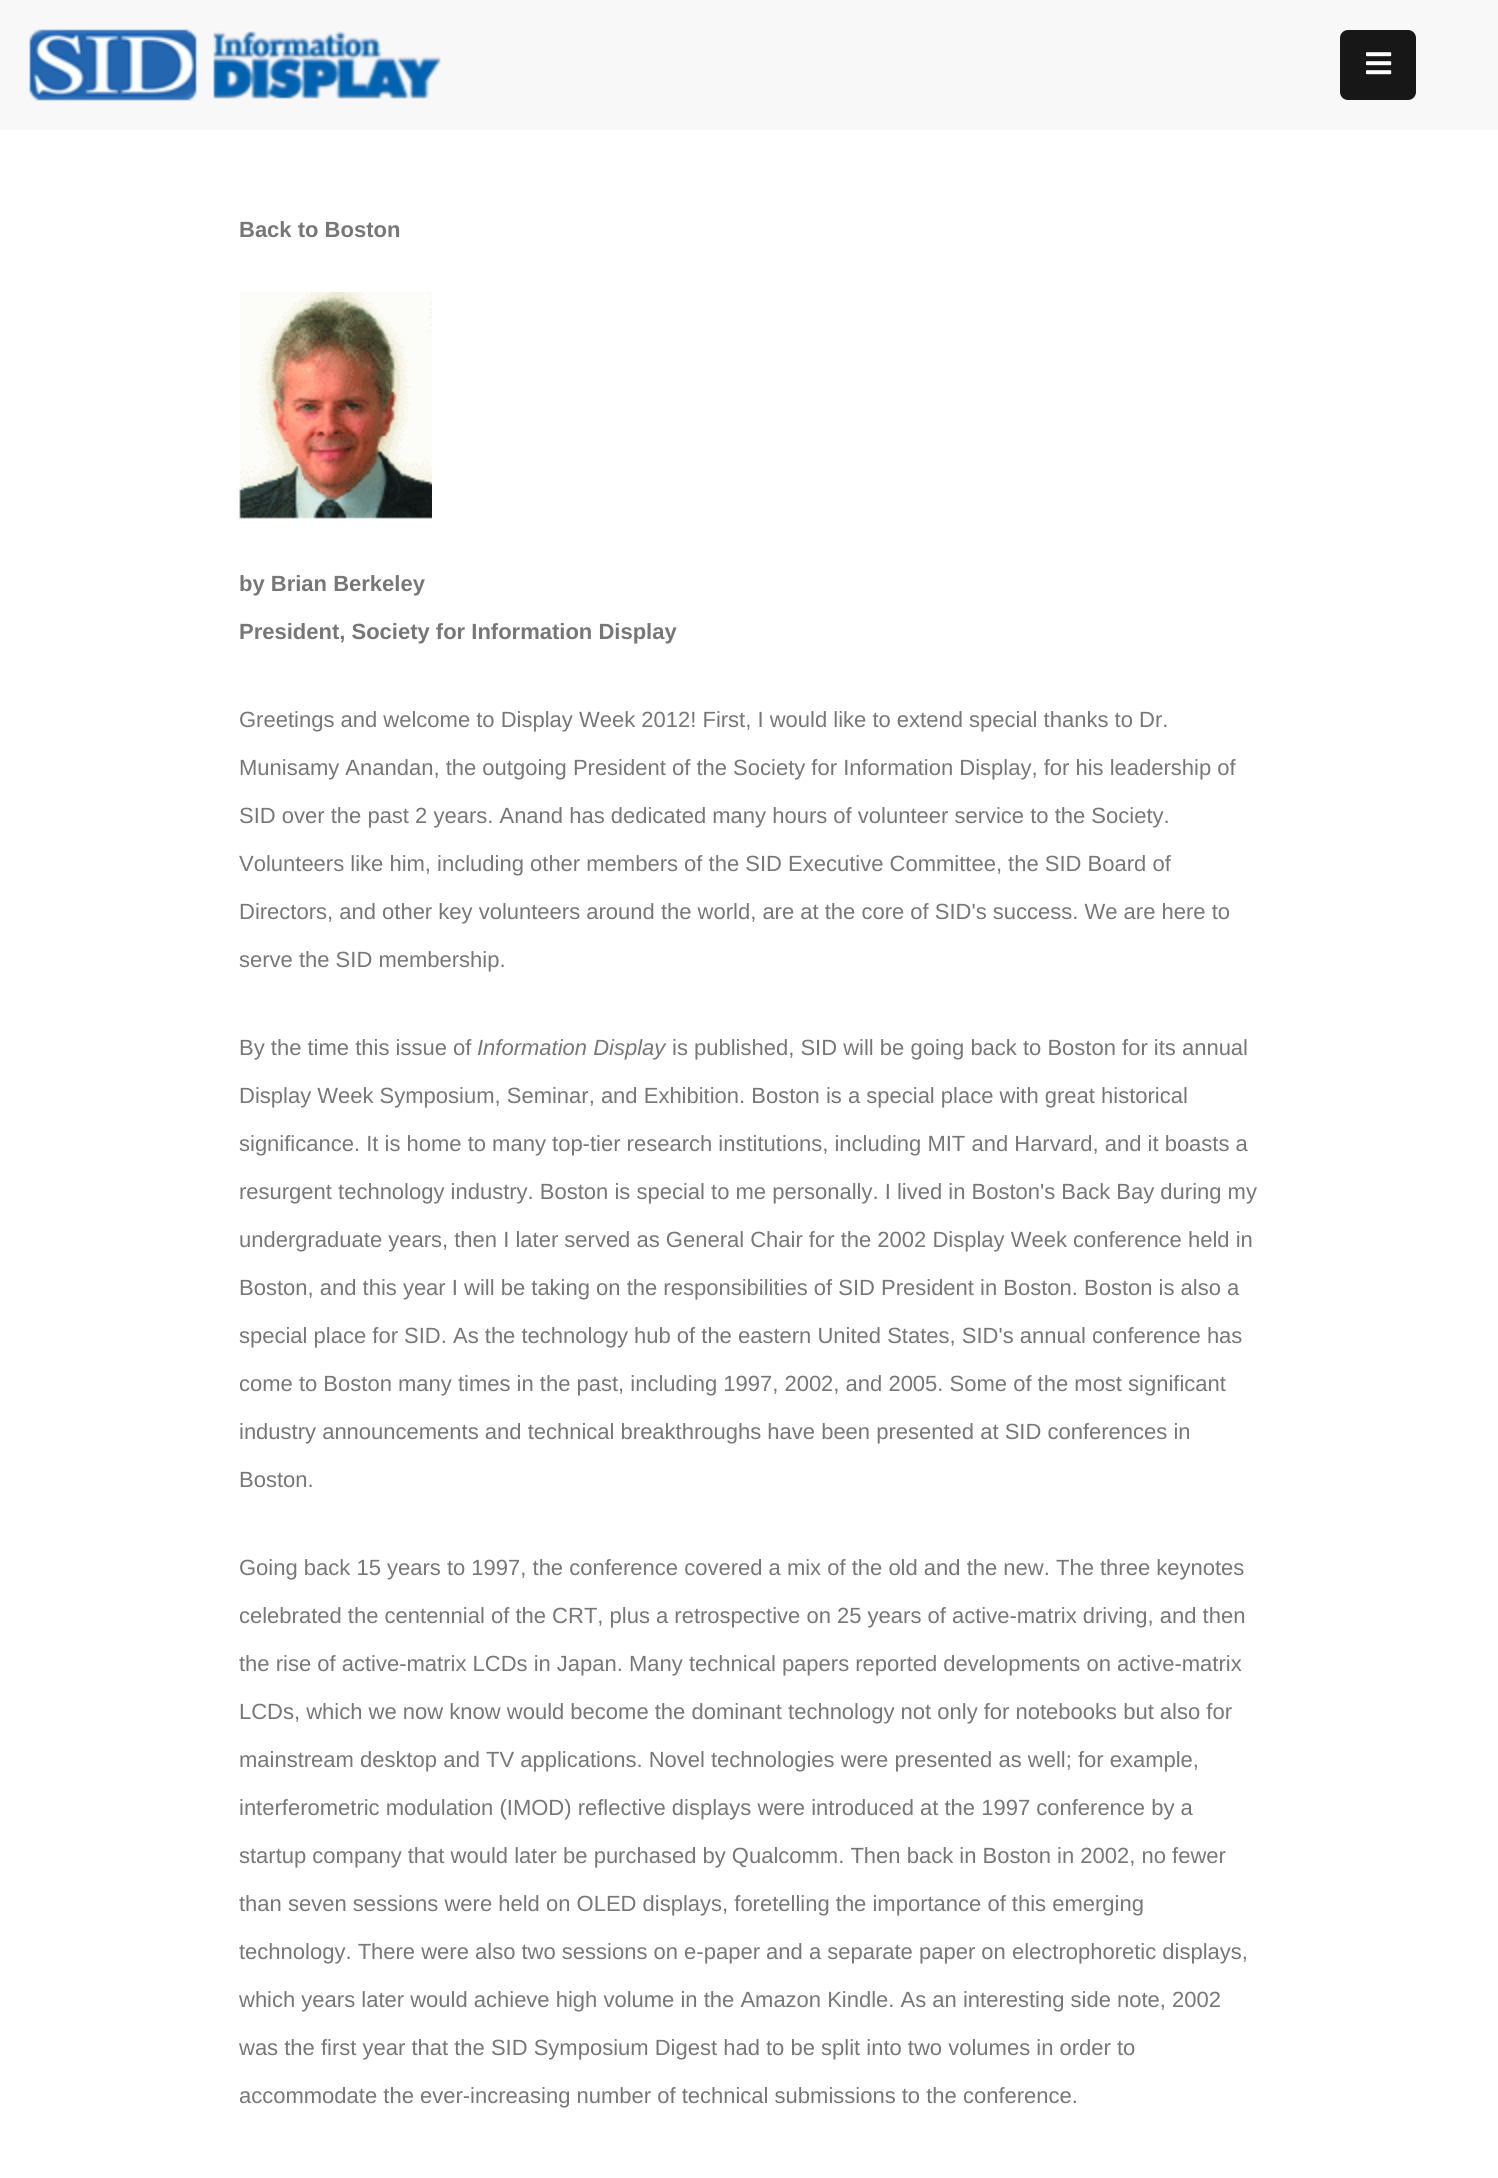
#include <cairo.h>
#include <math.h>
#include <stddef.h>

typedef struct { const char *family; double size; int italic, bold; unsigned color; } style_t;
static cairo_t *ctx;

static void ink(unsigned color) {
    cairo_set_source_rgb(ctx, (color >> 16) / 255.0, (color >> 8 & 255) / 255.0, (color & 255) / 255.0);
}

static void write(double x, double y, const char *s, const style_t *st) {
    cairo_select_font_face(ctx, st->family, st->italic ? CAIRO_FONT_SLANT_ITALIC : CAIRO_FONT_SLANT_NORMAL,
        st->bold ? CAIRO_FONT_WEIGHT_BOLD : CAIRO_FONT_WEIGHT_NORMAL);
    cairo_set_font_size(ctx, st->size);
    ink(st->color);
    cairo_move_to(ctx, x, y);
    cairo_show_text(ctx, s);
}

static void block(double x, double y, double w, double h, unsigned color) {
    ink(color);
    cairo_rectangle(ctx, x, y, w, h);
    cairo_fill(ctx);
}

static void round_path(double x, double y, double w, double h, double r) {
    cairo_new_sub_path(ctx);
    cairo_arc(ctx, x + w - r, y + h - r, r, 0, M_PI / 2);
    cairo_arc(ctx, x + r, y + h - r, r, M_PI / 2, M_PI);
    cairo_arc(ctx, x + r, y + r, r, M_PI, 1.5 * M_PI);
    cairo_arc(ctx, x + w - r, y + r, r, 1.5 * M_PI, 2 * M_PI);
    cairo_close_path(ctx);
}

static void paste(const char *path, double x, double y, double w, double h) {
    cairo_surface_t *image = cairo_image_surface_create_from_png(path);
    cairo_save(ctx);
    cairo_set_source_surface(ctx, image, x, y);
    cairo_rectangle(ctx, x, y, w, h);
    cairo_fill(ctx);
    cairo_restore(ctx);
    cairo_surface_destroy(image);
}

static const style_t s1 = {"Liberation Sans", 22, 0, 1, 0x777777};
static const style_t s2 = {"Liberation Sans", 22, 0, 0, 0x777777};
static const style_t s3 = {"Liberation Sans", 22, 1, 0, 0x777777};

int main(void) {
    cairo_surface_t *surface = cairo_image_surface_create(CAIRO_FORMAT_RGB24, 1498, 2178);
    ctx = cairo_create(surface);
    cairo_font_options_t *options = cairo_font_options_create();
    cairo_font_options_set_hint_metrics(options, CAIRO_HINT_METRICS_OFF);
    cairo_font_options_set_hint_style(options, CAIRO_HINT_STYLE_NONE);
    cairo_set_font_options(ctx, options);
    cairo_set_miter_limit(ctx, 4);
    ink(0xffffff);
    cairo_paint(ctx);
    block(0, 0, 1498, 130, 0xf8f8f8);
    paste("pic1.png", 29, 29, 412, 72);
    ink(0x171717);
    round_path(1340, 30, 76, 70, 8);
    cairo_fill(ctx);
    paste("pic2.png", 1366, 52, 26, 23);
    write(239, 237, "Back to Boston", &s1);
    paste("pic3.png", 239, 292, 193, 227);
    write(239, 591, "by Brian Berkeley", &s1);
    write(239, 639, "President, Society for Information Display", &s1);
    write(239, 727, "Greetings and welcome to Display Week 2012! First, I would like to extend special thanks to Dr.", &s2);
    write(239, 775, "Munisamy Anandan, the outgoing President of the Society for Information Display, for his leadership of", &s2);
    write(239, 823, "SID over the past 2 years. Anand has dedicated many hours of volunteer service to the Society.", &s2);
    write(239, 871, "Volunteers like him, including other members of the SID Executive Committee, the SID Board of", &s2);
    write(239, 919, "Directors, and other key volunteers around the world, are at the core of SID's success. We are here to", &s2);
    write(239, 967, "serve the SID membership.", &s2);
    write(239, 1055, "By the time this issue of", &s2);
    write(477, 1055, "Information Display", &s3);
    write(672, 1055, "is published, SID will be going back to Boston for its annual", &s2);
    write(239, 1103, "Display Week Symposium, Seminar, and Exhibition. Boston is a special place with great historical", &s2);
    write(239, 1151, "significance. It is home to many top-tier research institutions, including MIT and Harvard, and it boasts a", &s2);
    write(239, 1199, "resurgent technology industry. Boston is special to me personally. I lived in Boston's Back Bay during my", &s2);
    write(239, 1247, "undergraduate years, then I later served as General Chair for the 2002 Display Week conference held in", &s2);
    write(239, 1295, "Boston, and this year I will be taking on the responsibilities of SID President in Boston. Boston is also a", &s2);
    write(239, 1343, "special place for SID. As the technology hub of the eastern United States, SID's annual conference has", &s2);
    write(239, 1391, "come to Boston many times in the past, including 1997, 2002, and 2005. Some of the most significant", &s2);
    write(239, 1439, "industry announcements and technical breakthroughs have been presented at SID conferences in", &s2);
    write(239, 1487, "Boston.", &s2);
    write(239, 1575, "Going back 15 years to 1997, the conference covered a mix of the old and the new. The three keynotes", &s2);
    write(239, 1623, "celebrated the centennial of the CRT, plus a retrospective on 25 years of active-matrix driving, and then", &s2);
    write(239, 1671, "the rise of active-matrix LCDs in Japan. Many technical papers reported developments on active-matrix", &s2);
    write(239, 1719, "LCDs, which we now know would become the dominant technology not only for notebooks but also for", &s2);
    write(239, 1767, "mainstream desktop and TV applications. Novel technologies were presented as well; for example,", &s2);
    write(239, 1815, "interferometric modulation (IMOD) reflective displays were introduced at the 1997 conference by a", &s2);
    write(239, 1863, "startup company that would later be purchased by Qualcomm. Then back in Boston in 2002, no fewer", &s2);
    write(239, 1911, "than seven sessions were held on OLED displays, foretelling the importance of this emerging", &s2);
    write(239, 1959, "technology. There were also two sessions on e-paper and a separate paper on electrophoretic displays,", &s2);
    write(239, 2007, "which years later would achieve high volume in the Amazon Kindle. As an interesting side note, 2002", &s2);
    write(239, 2055, "was the first year that the SID Symposium Digest had to be split into two volumes in order to", &s2);
    write(239, 2103, "accommodate the ever-increasing number of technical submissions to the conference.", &s2);
    cairo_surface_write_to_png(surface, "screenshot.png");
    cairo_font_options_destroy(options);
    cairo_destroy(ctx);
    cairo_surface_destroy(surface);
    return 0;
}
